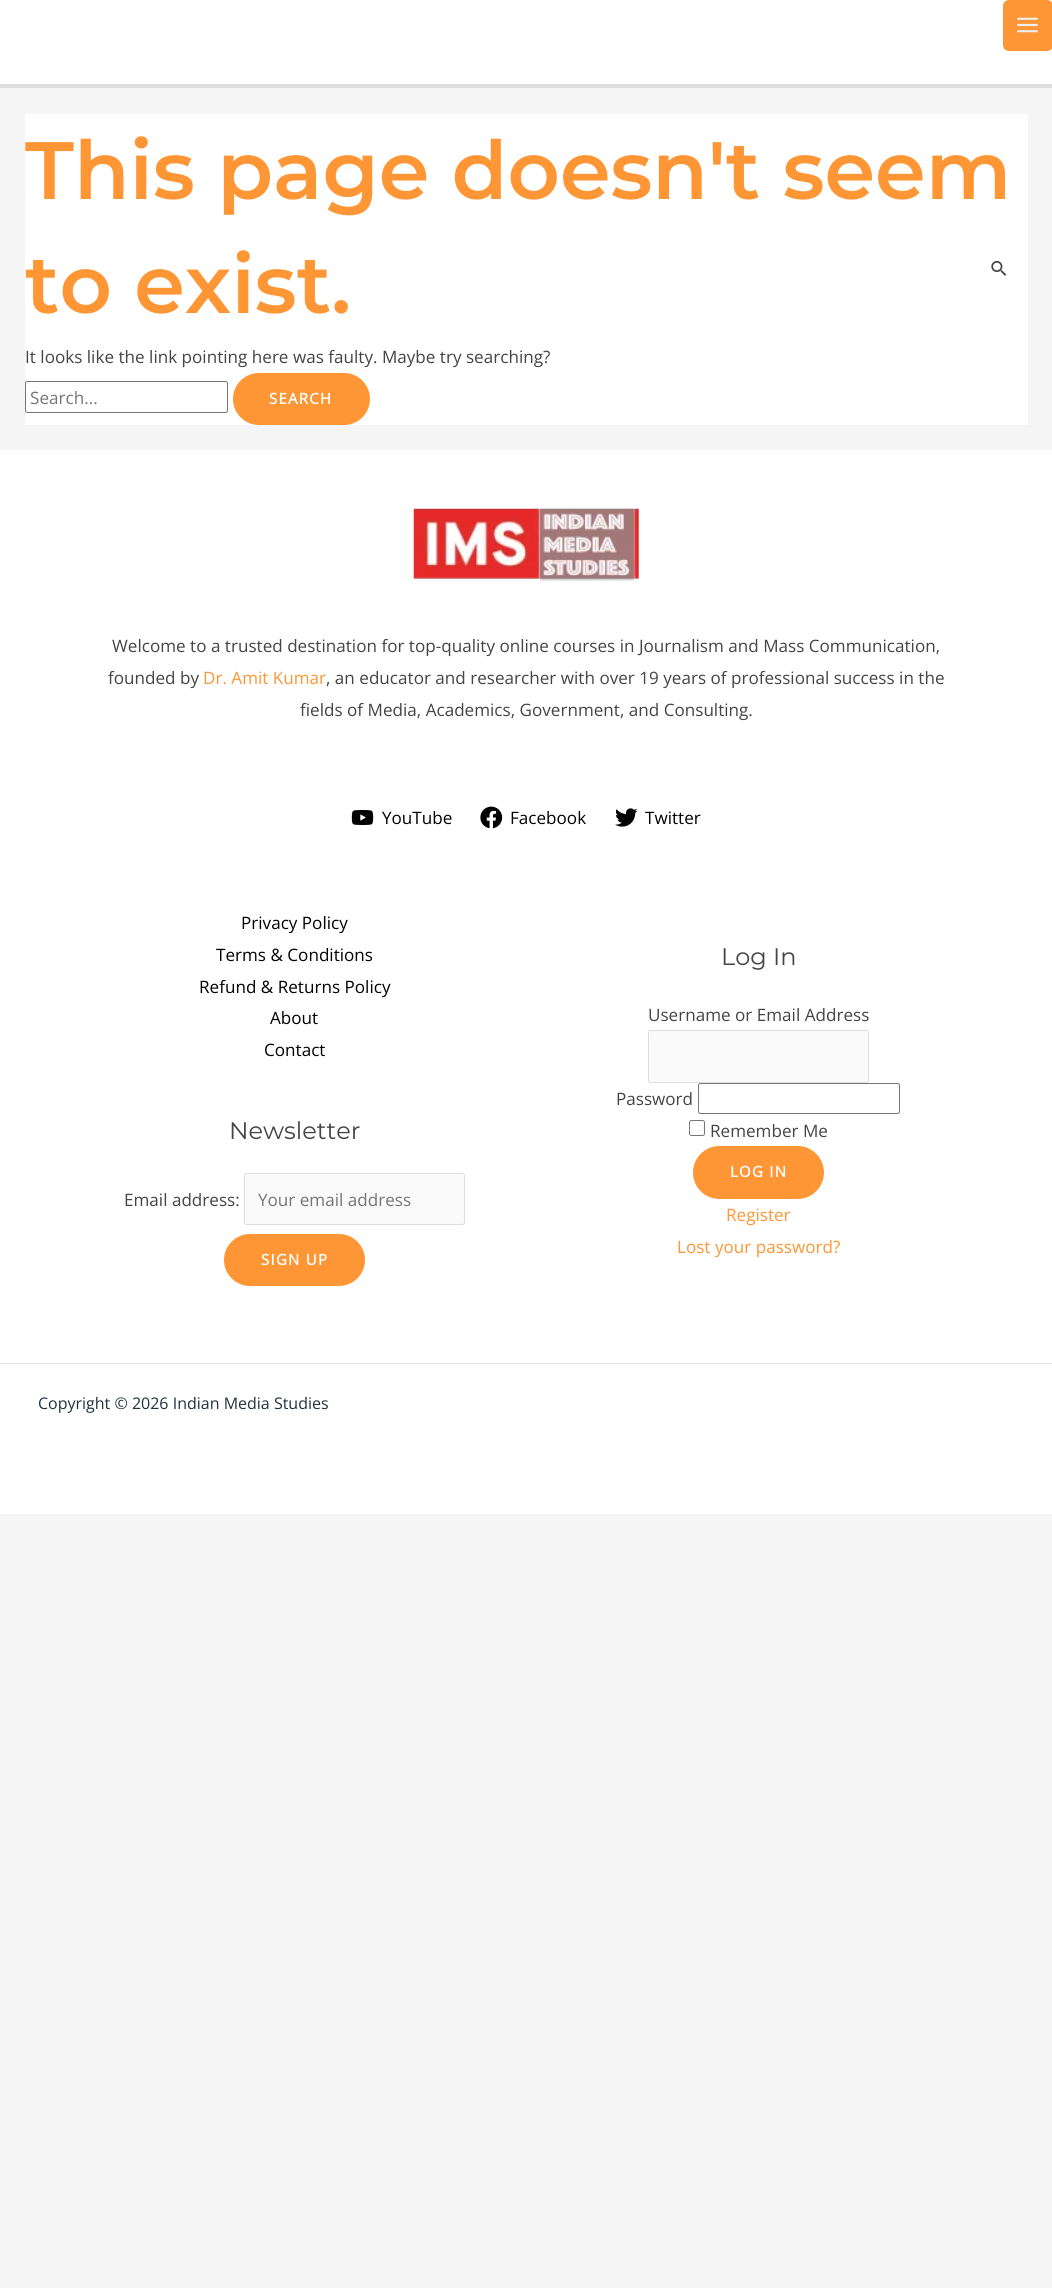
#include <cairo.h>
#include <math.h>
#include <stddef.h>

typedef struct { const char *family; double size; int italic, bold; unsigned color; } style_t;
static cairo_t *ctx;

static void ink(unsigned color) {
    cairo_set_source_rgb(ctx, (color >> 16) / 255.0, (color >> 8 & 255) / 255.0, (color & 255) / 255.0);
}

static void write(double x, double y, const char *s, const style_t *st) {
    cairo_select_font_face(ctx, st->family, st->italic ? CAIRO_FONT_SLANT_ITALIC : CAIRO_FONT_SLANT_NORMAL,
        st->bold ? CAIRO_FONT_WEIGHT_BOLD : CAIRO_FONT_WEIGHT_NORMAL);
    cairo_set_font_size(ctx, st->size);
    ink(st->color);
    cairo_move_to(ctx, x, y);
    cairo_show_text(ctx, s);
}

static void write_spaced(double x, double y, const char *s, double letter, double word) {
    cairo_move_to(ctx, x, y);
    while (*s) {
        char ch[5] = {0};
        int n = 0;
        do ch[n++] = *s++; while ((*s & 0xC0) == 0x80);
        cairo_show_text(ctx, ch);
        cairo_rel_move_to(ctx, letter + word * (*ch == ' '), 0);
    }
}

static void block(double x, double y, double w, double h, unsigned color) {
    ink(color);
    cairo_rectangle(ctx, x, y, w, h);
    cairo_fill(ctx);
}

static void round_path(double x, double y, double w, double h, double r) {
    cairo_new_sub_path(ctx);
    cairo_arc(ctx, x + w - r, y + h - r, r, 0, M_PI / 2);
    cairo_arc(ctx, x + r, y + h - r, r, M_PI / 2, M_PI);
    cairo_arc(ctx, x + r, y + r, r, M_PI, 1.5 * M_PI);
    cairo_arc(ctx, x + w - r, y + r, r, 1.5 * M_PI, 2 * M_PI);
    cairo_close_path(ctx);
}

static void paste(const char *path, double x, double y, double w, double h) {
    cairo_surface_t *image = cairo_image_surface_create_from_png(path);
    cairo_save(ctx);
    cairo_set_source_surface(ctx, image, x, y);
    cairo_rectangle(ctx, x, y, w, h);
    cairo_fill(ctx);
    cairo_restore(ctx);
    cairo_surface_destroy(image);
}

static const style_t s1 = {"Montserrat SemiBold", 81.25, 0, 0, 0xff9635};
static const style_t s2 = {"Open Sans", 17.1, 0, 0, 0x444444};
static const style_t s3 = {"Open Sans", 17.1, 0, 0, 0x757575};
static const style_t s4 = {"Open Sans", 17.1, 0, 0, 0xff9635};
static const style_t s5 = {"Open Sans", 17.1, 0, 0, 0x000000};
static const style_t s6 = {"Montserrat", 24, 0, 0, 0x444444};
static const style_t s7 = {"Open Sans", 16, 0, 0, 0x22323d};

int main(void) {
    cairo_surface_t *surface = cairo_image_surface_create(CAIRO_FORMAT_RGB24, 1052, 2288);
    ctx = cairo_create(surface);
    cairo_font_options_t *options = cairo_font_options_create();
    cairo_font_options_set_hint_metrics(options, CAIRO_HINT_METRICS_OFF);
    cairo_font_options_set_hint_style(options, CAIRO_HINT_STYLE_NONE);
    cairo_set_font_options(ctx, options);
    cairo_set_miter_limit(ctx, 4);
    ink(0xf5f5f5);
    cairo_paint(ctx);
    block(0, 0, 1052, 84, 0xffffff);
    block(0, 84, 1052, 4, 0xdddddd);
    ink(0xff9635);
    round_path(1003, 0, 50, 51, 6);
    cairo_fill(ctx);
    paste("pic1.png", 1017, 17, 21, 16);
    block(25, 114, 1003, 311, 0xffffff);
    write(25, 199, "This page doesn't seem", &s1);
    write(25, 313, "to exist.", &s1);
    write(25, 363, "It looks like the link pointing here was faulty. Maybe try searching?", &s2);
    paste("pic2.png", 991, 260, 16, 16);
    round_path(25.5, 381.5, 202, 31, 2);
    ink(0x767676);
    cairo_set_line_width(ctx, 1);
    cairo_stroke(ctx);
    write(30, 404, "Search...", &s3);
    ink(0xff9635);
    round_path(233, 373, 137, 52, 26);
    cairo_fill(ctx);
    cairo_select_font_face(ctx, "Open Sans", CAIRO_FONT_SLANT_NORMAL, CAIRO_FONT_WEIGHT_BOLD);
    cairo_set_font_size(ctx, 15);
    ink(0xffffff);
    write_spaced(269, 404, "SEARCH", 1.25, 0);
    block(0, 450, 1052, 1064, 0xffffff);
    paste("pic3.png", 413, 508, 226, 73);
    write(112, 652, "Welcome to a trusted destination for top-quality online courses in Journalism and Mass Communication,", &s2);
    write(108, 684, "founded by", &s2);
    write(203, 684, "Dr. Amit Kumar", &s4);
    write(326, 684, ", an educator and researcher with over 19 years of professional success in the", &s2);
    write(300, 716, "fields of Media, Academics, Government, and Consulting.", &s2);
    paste("pic4.png", 351, 810, 23, 15);
    write(382, 824, "YouTube", &s5);
    paste("pic5.png", 480, 806, 23, 23);
    write(510, 824, "Facebook", &s5);
    paste("pic6.png", 615, 808, 23, 19);
    write(645, 824, "Twitter", &s5);
    write(241, 929, "Privacy Policy", &s5);
    write(216, 961, "Terms & Conditions", &s5);
    write(199, 993, "Refund & Returns Policy", &s5);
    write(270, 1024, "About", &s5);
    write(264, 1056, "Contact", &s5);
    write(229, 1139, "Newsletter", &s6);
    write(124, 1206, "Email address:", &s2);
    ink(0xfafafa);
    round_path(244.5, 1173.5, 220, 51, 2);
    cairo_fill_preserve(ctx);
    ink(0xdddddd);
    cairo_stroke(ctx);
    write(258, 1206, "Your email address", &s3);
    ink(0xff9635);
    round_path(224, 1234, 141, 52, 26);
    cairo_fill(ctx);
    cairo_select_font_face(ctx, "Open Sans", CAIRO_FONT_SLANT_NORMAL, CAIRO_FONT_WEIGHT_BOLD);
    cairo_set_font_size(ctx, 15);
    ink(0xffffff);
    write_spaced(261, 1265, "SIGN UP", 1.25, 0);
    write(721, 965, "Log In", &s6);
    write(648, 1021, "Username or Email Address", &s2);
    ink(0xfafafa);
    round_path(648.5, 1030.5, 220, 52, 2);
    cairo_fill_preserve(ctx);
    ink(0xdddddd);
    cairo_stroke(ctx);
    write(616, 1105, "Password", &s2);
    round_path(698.5, 1083.5, 201, 30, 2);
    ink(0x767676);
    cairo_stroke(ctx);
    round_path(689.5, 1120.5, 15, 15, 2);
    cairo_stroke(ctx);
    write(710, 1137, "Remember Me", &s2);
    ink(0xff9635);
    round_path(693, 1146, 131, 53, 26.5);
    cairo_fill(ctx);
    cairo_select_font_face(ctx, "Open Sans", CAIRO_FONT_SLANT_NORMAL, CAIRO_FONT_WEIGHT_BOLD);
    cairo_set_font_size(ctx, 15);
    ink(0xffffff);
    write_spaced(730, 1177, "LOG IN", 1.25, 0);
    write(726, 1221, "Register", &s4);
    write(677, 1253, "Lost your password?", &s4);
    block(0, 1363, 1052, 1, 0xe7e7e7);
    write(38, 1409, "Copyright © 2026 Indian Media Studies", &s7);
    cairo_surface_write_to_png(surface, "screenshot.png");
    cairo_font_options_destroy(options);
    cairo_destroy(ctx);
    cairo_surface_destroy(surface);
    return 0;
}
